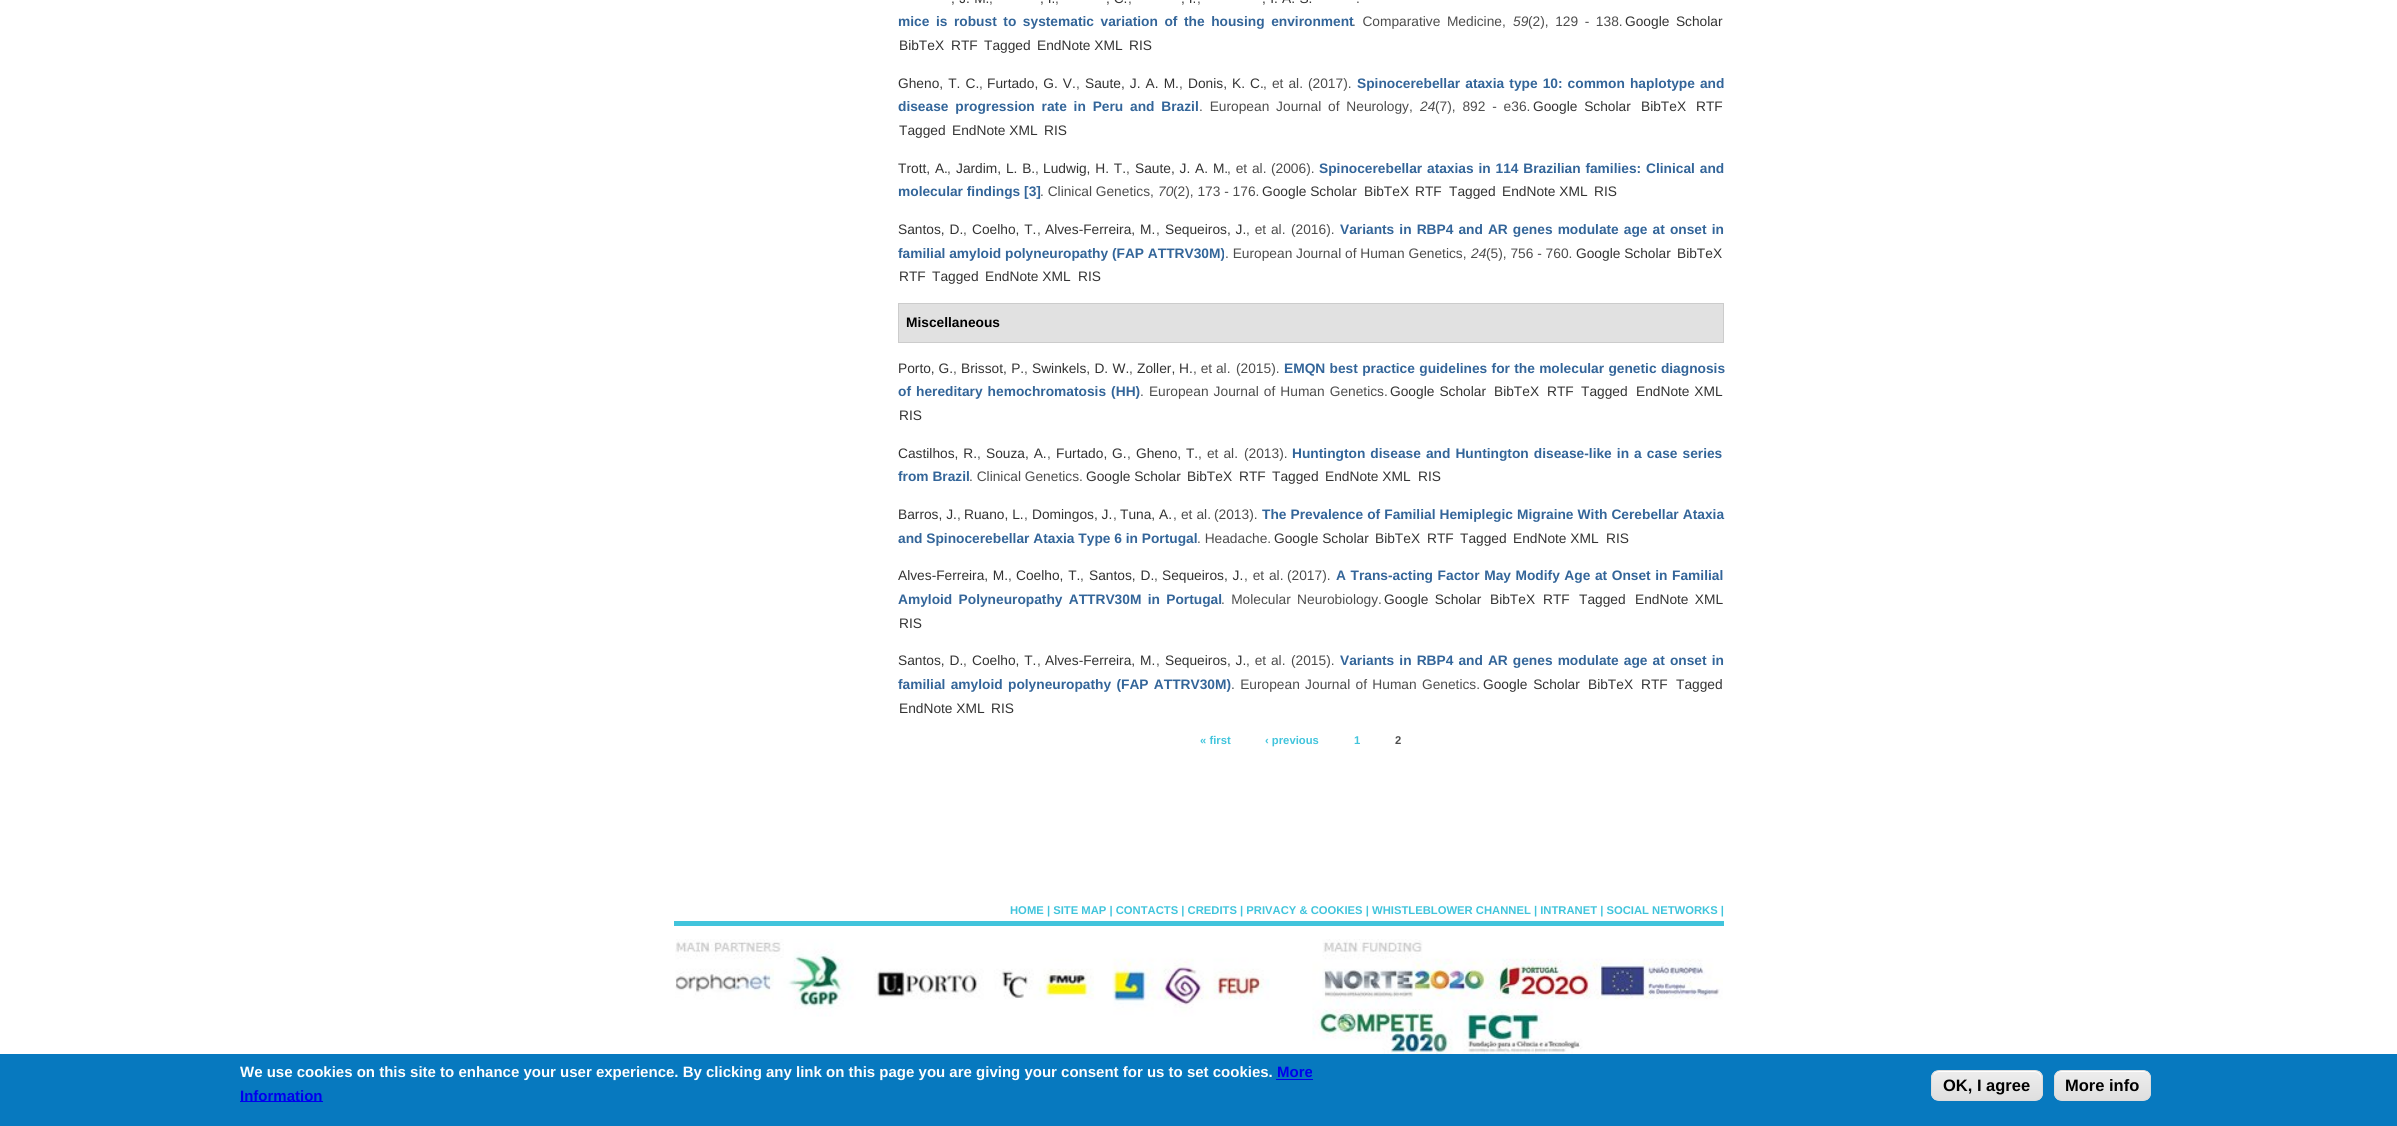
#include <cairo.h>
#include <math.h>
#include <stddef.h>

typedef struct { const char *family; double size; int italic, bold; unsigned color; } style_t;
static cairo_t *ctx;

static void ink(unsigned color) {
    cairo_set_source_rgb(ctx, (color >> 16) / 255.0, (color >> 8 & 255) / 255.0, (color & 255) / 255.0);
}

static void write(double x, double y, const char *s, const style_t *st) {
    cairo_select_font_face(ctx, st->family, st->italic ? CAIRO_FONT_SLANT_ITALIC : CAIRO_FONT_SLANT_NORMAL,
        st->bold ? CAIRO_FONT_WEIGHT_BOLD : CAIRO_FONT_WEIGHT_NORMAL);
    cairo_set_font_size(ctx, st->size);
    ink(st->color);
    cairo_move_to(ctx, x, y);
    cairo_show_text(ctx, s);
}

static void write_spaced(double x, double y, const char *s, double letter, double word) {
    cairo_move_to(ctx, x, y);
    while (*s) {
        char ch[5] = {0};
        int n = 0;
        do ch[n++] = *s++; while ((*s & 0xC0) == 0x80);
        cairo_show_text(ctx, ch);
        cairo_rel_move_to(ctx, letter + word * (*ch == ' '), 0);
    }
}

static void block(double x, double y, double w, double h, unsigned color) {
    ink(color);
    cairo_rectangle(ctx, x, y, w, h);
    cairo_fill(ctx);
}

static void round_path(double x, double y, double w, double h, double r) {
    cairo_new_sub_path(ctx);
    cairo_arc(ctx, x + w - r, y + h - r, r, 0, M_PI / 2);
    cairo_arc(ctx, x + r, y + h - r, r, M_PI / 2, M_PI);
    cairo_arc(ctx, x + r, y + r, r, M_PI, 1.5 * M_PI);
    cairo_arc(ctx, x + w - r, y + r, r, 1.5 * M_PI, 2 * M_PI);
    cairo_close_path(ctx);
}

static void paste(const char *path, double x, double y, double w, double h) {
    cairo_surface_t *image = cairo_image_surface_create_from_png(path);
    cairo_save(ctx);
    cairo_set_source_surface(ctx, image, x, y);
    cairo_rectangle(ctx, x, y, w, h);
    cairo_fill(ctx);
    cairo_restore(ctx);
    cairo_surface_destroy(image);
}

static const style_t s1 = {"Liberation Sans", 13.75, 0, 0, 0x4d4d4d};
static const style_t s2 = {"Liberation Sans", 13.75, 0, 0, 0x333333};
static const style_t s3 = {"Liberation Sans", 13.75, 1, 0, 0x4d4d4d};
static const style_t s4 = {"Liberation Sans", 13.75, 0, 1, 0x336599};
static const style_t s5 = {"Liberation Sans", 13.75, 0, 1, 0x000000};
static const style_t s6 = {"Liberation Sans", 11.25, 0, 1, 0x41c4dc};
static const style_t s7 = {"Liberation Sans", 11.25, 0, 1, 0x4d4d4d};
static const style_t s8 = {"Liberation Sans", 15, 0, 1, 0xffffff};
static const style_t s9 = {"Liberation Sans", 15, 0, 1, 0x0000ee};
static const style_t s10 = {"Liberation Sans", 16.5, 0, 1, 0x000000};

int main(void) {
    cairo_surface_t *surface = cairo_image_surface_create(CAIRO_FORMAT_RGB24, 2397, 1126);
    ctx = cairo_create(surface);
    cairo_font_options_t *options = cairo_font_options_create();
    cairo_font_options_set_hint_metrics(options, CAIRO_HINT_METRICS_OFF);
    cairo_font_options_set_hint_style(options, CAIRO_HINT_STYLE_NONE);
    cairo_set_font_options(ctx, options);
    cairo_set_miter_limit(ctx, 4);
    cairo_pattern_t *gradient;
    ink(0xffffff);
    cairo_paint(ctx);
    cairo_select_font_face(ctx, "Liberation Sans", CAIRO_FONT_SLANT_NORMAL, CAIRO_FONT_WEIGHT_NORMAL);
    cairo_set_font_size(ctx, 13.75);
    ink(0x333333);
    write_spaced(951, 3, ", J. M.", 0, 0.5);
    write(989, 3, ",", &s1);
    write(1040, 3, ", I.", &s2);
    write(1055, 3, ",", &s1);
    write(1106, 3, ", C.", &s2);
    write(1128, 3, ",", &s1);
    write(1181, 3, ", I.", &s2);
    ink(0x4d4d4d);
    write_spaced(1197, 3, ",", 0, 0.5);
    ink(0x333333);
    write_spaced(1262, 3, ", I. A. S.", 0, 0.5);
    write(1356, 3, ".", &s1);
    cairo_select_font_face(ctx, "Liberation Sans", CAIRO_FONT_SLANT_NORMAL, CAIRO_FONT_WEIGHT_BOLD);
    ink(0x336599);
    write_spaced(898, 26, "mice is robust to systematic variation of the housing environment", 0, 2.75);
    cairo_select_font_face(ctx, "Liberation Sans", CAIRO_FONT_SLANT_NORMAL, CAIRO_FONT_WEIGHT_NORMAL);
    ink(0x4d4d4d);
    write_spaced(1352, 26, ". Comparative Medicine,", 0, 2.75);
    write(1513, 26, "59", &s3);
    cairo_select_font_face(ctx, "Liberation Sans", CAIRO_FONT_SLANT_NORMAL, CAIRO_FONT_WEIGHT_NORMAL);
    write_spaced(1528, 26, "(2), 129 - 138.", 0, 2.75);
    ink(0x333333);
    write_spaced(1625, 26, "Google Scholar", 0, 2.75);
    write(899, 50, "BibTeX", &s2);
    write(951, 50, "RTF", &s2);
    write(984, 50, "Tagged", &s2);
    write(1037, 50, "EndNote XML", &s2);
    write(1129, 50, "RIS", &s2);
    write_spaced(898, 88, "Gheno, T. C.", 0, 1.25);
    write(979, 88, ",", &s1);
    ink(0x333333);
    write_spaced(987, 88, "Furtado, G. V.", 0, 1.25);
    write(1076, 88, ",", &s1);
    ink(0x333333);
    write_spaced(1085, 88, "Saute, J. A. M.", 0, 1.25);
    write(1179, 88, ",", &s1);
    ink(0x333333);
    write_spaced(1188, 88, "Donis, K. C.", 0, 1.25);
    ink(0x4d4d4d);
    write_spaced(1263, 88, ", et al.", 0, 1.25);
    write(1308, 88, "(2017).", &s1);
    cairo_select_font_face(ctx, "Liberation Sans", CAIRO_FONT_SLANT_NORMAL, CAIRO_FONT_WEIGHT_BOLD);
    ink(0x336599);
    write_spaced(1357, 88, "Spinocerebellar ataxia type 10: common haplotype and", 0, 1.25);
    write_spaced(898, 111, "disease progression rate in Peru and Brazil", 0, 3);
    cairo_select_font_face(ctx, "Liberation Sans", CAIRO_FONT_SLANT_NORMAL, CAIRO_FONT_WEIGHT_NORMAL);
    ink(0x4d4d4d);
    write_spaced(1199, 111, ". European Journal of Neurology,", 0, 3);
    write(1420, 111, "24", &s3);
    cairo_select_font_face(ctx, "Liberation Sans", CAIRO_FONT_SLANT_NORMAL, CAIRO_FONT_WEIGHT_NORMAL);
    write_spaced(1435, 111, "(7), 892 - e36.", 0, 3);
    ink(0x333333);
    write_spaced(1533, 111, "Google Scholar", 0, 3);
    write(1641, 111, "BibTeX", &s2);
    write(1696, 111, "RTF", &s2);
    write(899, 135, "Tagged", &s2);
    write(952, 135, "EndNote XML", &s2);
    write(1044, 135, "RIS", &s2);
    write_spaced(898, 173, "Trott, A.", 0, 1);
    write(947, 173, ",", &s1);
    ink(0x333333);
    write_spaced(956, 173, "Jardim, L. B.", 0, 1);
    write(1035, 173, ",", &s1);
    ink(0x333333);
    write_spaced(1043, 173, "Ludwig, H. T.", 0, 1);
    write(1126, 173, ",", &s1);
    ink(0x333333);
    write_spaced(1135, 173, "Saute, J. A. M.", 0, 1);
    ink(0x4d4d4d);
    write_spaced(1227, 173, ", et al.", 0, 1);
    write(1271, 173, "(2006).", &s1);
    cairo_select_font_face(ctx, "Liberation Sans", CAIRO_FONT_SLANT_NORMAL, CAIRO_FONT_WEIGHT_BOLD);
    ink(0x336599);
    write_spaced(1319, 173, "Spinocerebellar ataxias in 114 Brazilian families: Clinical and", 0, 1);
    write(898, 196, "molecular findings [3]", &s4);
    write(1040, 196, ". Clinical Genetics,", &s1);
    write(1158, 196, "70", &s3);
    write(1173, 196, "(2), 173 - 176.", &s1);
    write(1262, 196, "Google Scholar", &s2);
    write(1364, 196, "BibTeX", &s2);
    write(1415, 196, "RTF", &s2);
    write(1449, 196, "Tagged", &s2);
    write(1502, 196, "EndNote XML", &s2);
    write(1594, 196, "RIS", &s2);
    write_spaced(898, 234, "Santos, D.", 0, 1);
    write(963, 234, ",", &s1);
    ink(0x333333);
    write_spaced(972, 234, "Coelho, T.", 0, 1);
    write(1037, 234, ",", &s1);
    ink(0x333333);
    write_spaced(1045, 234, "Alves-Ferreira, M.", 0, 1);
    write(1156, 234, ",", &s1);
    ink(0x333333);
    write_spaced(1165, 234, "Sequeiros, J.", 0, 1);
    ink(0x4d4d4d);
    write_spaced(1246, 234, ", et al.", 0, 1);
    write(1291, 234, "(2016).", &s1);
    cairo_select_font_face(ctx, "Liberation Sans", CAIRO_FONT_SLANT_NORMAL, CAIRO_FONT_WEIGHT_BOLD);
    ink(0x336599);
    write_spaced(1340, 234, "Variants in RBP4 and AR genes modulate age at onset in", 0, 1.25);
    write(898, 258, "familial amyloid polyneuropathy (FAP ATTRV30M)", &s4);
    write(1225, 258, ". European Journal of Human Genetics,", &s1);
    write(1471, 258, "24", &s3);
    write(1486, 258, "(5), 756 - 760.", &s1);
    write(1576, 258, "Google Scholar", &s2);
    write(1677, 258, "BibTeX", &s2);
    write(899, 281, "RTF", &s2);
    write(932, 281, "Tagged", &s2);
    write(985, 281, "EndNote XML", &s2);
    write(1078, 281, "RIS", &s2);
    ink(0xe1e1e1);
    cairo_rectangle(ctx, 898.5, 303.5, 825, 39);
    cairo_fill_preserve(ctx);
    ink(0xcccccc);
    cairo_set_line_width(ctx, 1);
    cairo_stroke(ctx);
    write(906, 327, "Miscellaneous", &s5);
    write(898, 373, "Porto, G.", &s2);
    write(953, 373, ",", &s1);
    ink(0x333333);
    write_spaced(961, 373, "Brissot, P.", 0, 0.5);
    write(1024, 373, ",", &s1);
    ink(0x333333);
    write_spaced(1032, 373, "Swinkels, D. W.", 0, 0.5);
    write(1129, 373, ",", &s1);
    write(1137, 373, "Zoller, H.", &s2);
    write(1193, 373, ", et al.", &s1);
    write(1236, 373, "(2015).", &s1);
    cairo_select_font_face(ctx, "Liberation Sans", CAIRO_FONT_SLANT_NORMAL, CAIRO_FONT_WEIGHT_BOLD);
    ink(0x336599);
    write_spaced(1284, 373, "EMQN best practice guidelines for the molecular genetic diagnosis", 0, 0.5);
    write_spaced(898, 396, "of hereditary hemochromatosis (HH)", 0, 1.25);
    cairo_select_font_face(ctx, "Liberation Sans", CAIRO_FONT_SLANT_NORMAL, CAIRO_FONT_WEIGHT_NORMAL);
    ink(0x4d4d4d);
    write_spaced(1140, 396, ". European Journal of Human Genetics.", 0, 1.25);
    ink(0x333333);
    write_spaced(1390, 396, "Google Scholar", 0, 1.25);
    write(1494, 396, "BibTeX", &s2);
    write(1547, 396, "RTF", &s2);
    write(1581, 396, "Tagged", &s2);
    write_spaced(1636, 396, "EndNote XML", 0, 1);
    write(899, 420, "RIS", &s2);
    write_spaced(898, 458, "Castilhos, R.", 0, 1);
    write(977, 458, ",", &s1);
    ink(0x333333);
    write_spaced(986, 458, "Souza, A.", 0, 1);
    write(1047, 458, ",", &s1);
    ink(0x333333);
    write_spaced(1056, 458, "Furtado, G.", 0, 1);
    write(1127, 458, ",", &s1);
    ink(0x333333);
    write_spaced(1136, 458, "Gheno, T.", 0, 1);
    ink(0x4d4d4d);
    write_spaced(1198, 458, ", et al.", 0, 1.25);
    write(1244, 458, "(2013).", &s1);
    cairo_select_font_face(ctx, "Liberation Sans", CAIRO_FONT_SLANT_NORMAL, CAIRO_FONT_WEIGHT_BOLD);
    ink(0x336599);
    write_spaced(1292, 458, "Huntington disease and Huntington disease-like in a case series", 0, 1.25);
    write(898, 481, "from Brazil", &s4);
    write(969, 481, ". Clinical Genetics.", &s1);
    write(1086, 481, "Google Scholar", &s2);
    write(1187, 481, "BibTeX", &s2);
    write(1239, 481, "RTF", &s2);
    write(1272, 481, "Tagged", &s2);
    write(1325, 481, "EndNote XML", &s2);
    write(1418, 481, "RIS", &s2);
    write(898, 519, "Barros, J.", &s2);
    write(957, 519, ",", &s1);
    write(964, 519, "Ruano, L.", &s2);
    write(1024, 519, ",", &s1);
    write(1032, 519, "Domingos, J.", &s2);
    write(1113, 519, ",", &s1);
    write(1120, 519, "Tuna, A.", &s2);
    ink(0x4d4d4d);
    write_spaced(1173, 519, ", et al.", 0, 0.25);
    write(1214, 519, "(2013).", &s1);
    cairo_select_font_face(ctx, "Liberation Sans", CAIRO_FONT_SLANT_NORMAL, CAIRO_FONT_WEIGHT_BOLD);
    ink(0x336599);
    write_spaced(1262, 519, "The Prevalence of Familial Hemiplegic Migraine With Cerebellar Ataxia", 0, 0.25);
    write(898, 543, "and Spinocerebellar Ataxia Type 6 in Portugal", &s4);
    write(1197, 543, ". Headache.", &s1);
    write(1274, 543, "Google Scholar", &s2);
    write(1375, 543, "BibTeX", &s2);
    write(1427, 543, "RTF", &s2);
    write(1460, 543, "Tagged", &s2);
    write(1513, 543, "EndNote XML", &s2);
    write(1606, 543, "RIS", &s2);
    write_spaced(898, 580, "Alves-Ferreira, M.", 0, 0.75);
    write(1008, 580, ",", &s1);
    ink(0x333333);
    write_spaced(1016, 580, "Coelho, T.", 0, 1);
    write(1080, 580, ",", &s1);
    ink(0x333333);
    write_spaced(1089, 580, "Santos, D.", 0, 1);
    write(1154, 580, ",", &s1);
    ink(0x333333);
    write_spaced(1162, 580, "Sequeiros, J.", 0, 1);
    ink(0x4d4d4d);
    write_spaced(1244, 580, ", et al.", 0, 1);
    write(1287, 580, "(2017).", &s1);
    cairo_select_font_face(ctx, "Liberation Sans", CAIRO_FONT_SLANT_NORMAL, CAIRO_FONT_WEIGHT_BOLD);
    ink(0x336599);
    write_spaced(1336, 580, "A Trans-acting Factor May Modify Age at Onset in Familial", 0, 0.75);
    write_spaced(898, 604, "Amyloid Polyneuropathy ATTRV30M in Portugal", 0, 2.5);
    cairo_select_font_face(ctx, "Liberation Sans", CAIRO_FONT_SLANT_NORMAL, CAIRO_FONT_WEIGHT_NORMAL);
    ink(0x4d4d4d);
    write_spaced(1221, 604, ". Molecular Neurobiology.", 0, 2.5);
    ink(0x333333);
    write_spaced(1384, 604, "Google Scholar", 0, 2.5);
    write(1490, 604, "BibTeX", &s2);
    write(1543, 604, "RTF", &s2);
    write(1579, 604, "Tagged", &s2);
    write_spaced(1635, 604, "EndNote XML", 0, 2.5);
    write(899, 628, "RIS", &s2);
    write_spaced(898, 665, "Santos, D.", 0, 1);
    write(963, 665, ",", &s1);
    ink(0x333333);
    write_spaced(972, 665, "Coelho, T.", 0, 1);
    write(1037, 665, ",", &s1);
    ink(0x333333);
    write_spaced(1045, 665, "Alves-Ferreira, M.", 0, 1);
    write(1156, 665, ",", &s1);
    ink(0x333333);
    write_spaced(1165, 665, "Sequeiros, J.", 0, 1);
    ink(0x4d4d4d);
    write_spaced(1246, 665, ", et al.", 0, 1);
    write(1291, 665, "(2015).", &s1);
    cairo_select_font_face(ctx, "Liberation Sans", CAIRO_FONT_SLANT_NORMAL, CAIRO_FONT_WEIGHT_BOLD);
    ink(0x336599);
    write_spaced(1340, 665, "Variants in RBP4 and AR genes modulate age at onset in", 0, 1.25);
    write_spaced(898, 689, "familial amyloid polyneuropathy (FAP ATTRV30M)", 0, 1.5);
    cairo_select_font_face(ctx, "Liberation Sans", CAIRO_FONT_SLANT_NORMAL, CAIRO_FONT_WEIGHT_NORMAL);
    ink(0x4d4d4d);
    write_spaced(1231, 689, ". European Journal of Human Genetics.", 0, 1.5);
    ink(0x333333);
    write_spaced(1483, 689, "Google Scholar", 0, 2);
    write(1588, 689, "BibTeX", &s2);
    write(1641, 689, "RTF", &s2);
    write(1676, 689, "Tagged", &s2);
    write(899, 713, "EndNote XML", &s2);
    write(991, 713, "RIS", &s2);
    write(1200, 744, "« first", &s6);
    write(1265, 744, "‹ previous", &s6);
    write(1354, 744, "1", &s6);
    write(1395, 744, "2", &s7);
    write(1010, 914, "HOME | SITE MAP | CONTACTS | CREDITS | PRIVACY & COOKIES | WHISTLEBLOWER CHANNEL | INTRANET | SOCIAL NETWORKS |", &s6);
    block(674, 921, 1050, 5, 0x41c4dc);
    paste("pic1.png", 675, 939, 595, 78);
    paste("pic2.png", 1312, 939, 411, 115);
    block(0, 1054, 2397, 72, 0x0779bf);
    write(240, 1077, "We use cookies on this site to enhance your user experience. By clicking any link on this page you are giving your consent for us to set cookies.", &s8);
    write(1277, 1077, "More", &s9);
    block(1276, 1079, 37, 1, 0x0000ee);
    block(240, 1101, 83, 1, 0x0000ee);
    write(240, 1101, "Information", &s9);
    cairo_save(ctx);
    round_path(1931, 1070, 112, 31, 8);
    cairo_clip(ctx);
    gradient = cairo_pattern_create_linear(1987, 1071, 1987, 1100);
    cairo_pattern_add_color_stop_rgba(gradient, 0.05, 0.929, 0.929, 0.929, 1);
    cairo_pattern_add_color_stop_rgba(gradient, 1, 0.875, 0.875, 0.875, 1);
    cairo_set_source(ctx, gradient);
    cairo_pattern_destroy(gradient);
    cairo_rectangle(ctx, 1931, 1071, 112, 29);
    cairo_fill(ctx);
    cairo_restore(ctx);
    ink(0xffffff);
    cairo_new_path(ctx);
    cairo_move_to(ctx, 1939, 1072);
    cairo_line_to(ctx, 2035, 1072);
    cairo_curve_to(ctx, 2038, 1072, 2041, 1075, 2041, 1079);
    cairo_line_to(ctx, 2041, 1077);
    cairo_curve_to(ctx, 2041, 1074, 2038, 1071, 2035, 1071);
    cairo_line_to(ctx, 1939, 1071);
    cairo_curve_to(ctx, 1937, 1071, 1934, 1072, 1934, 1075);
    cairo_curve_to(ctx, 1935, 1073, 1937, 1072, 1939, 1072);
    cairo_close_path(ctx);
    cairo_fill(ctx);
    round_path(1931.5, 1070.5, 111, 30, 7.5);
    ink(0xdcdcdc);
    cairo_stroke(ctx);
    write(1943, 1091, "OK, I agree", &s10);
    cairo_save(ctx);
    round_path(2054, 1070, 97, 31, 8);
    cairo_clip(ctx);
    gradient = cairo_pattern_create_linear(2103, 1071, 2103, 1100);
    cairo_pattern_add_color_stop_rgba(gradient, 0.05, 0.929, 0.929, 0.929, 1);
    cairo_pattern_add_color_stop_rgba(gradient, 1, 0.875, 0.875, 0.875, 1);
    cairo_set_source(ctx, gradient);
    cairo_pattern_destroy(gradient);
    cairo_rectangle(ctx, 2054, 1071, 97, 29);
    cairo_fill(ctx);
    cairo_restore(ctx);
    ink(0xffffff);
    cairo_new_path(ctx);
    cairo_move_to(ctx, 2061, 1072);
    cairo_line_to(ctx, 2144, 1072);
    cairo_curve_to(ctx, 2147, 1072, 2150, 1075, 2150, 1079);
    cairo_curve_to(ctx, 2150, 1067, 2139, 1071, 2130, 1071);
    cairo_line_to(ctx, 2075, 1071);
    cairo_curve_to(ctx, 2066, 1071, 2055, 1067, 2055, 1079);
    cairo_curve_to(ctx, 2055, 1075, 2058, 1072, 2061, 1072);
    cairo_close_path(ctx);
    cairo_fill(ctx);
    round_path(2054.5, 1070.5, 96, 30, 7.5);
    ink(0xdcdcdc);
    cairo_stroke(ctx);
    write(2065, 1091, "More info", &s10);
    cairo_surface_write_to_png(surface, "screenshot.png");
    cairo_font_options_destroy(options);
    cairo_destroy(ctx);
    cairo_surface_destroy(surface);
    return 0;
}
